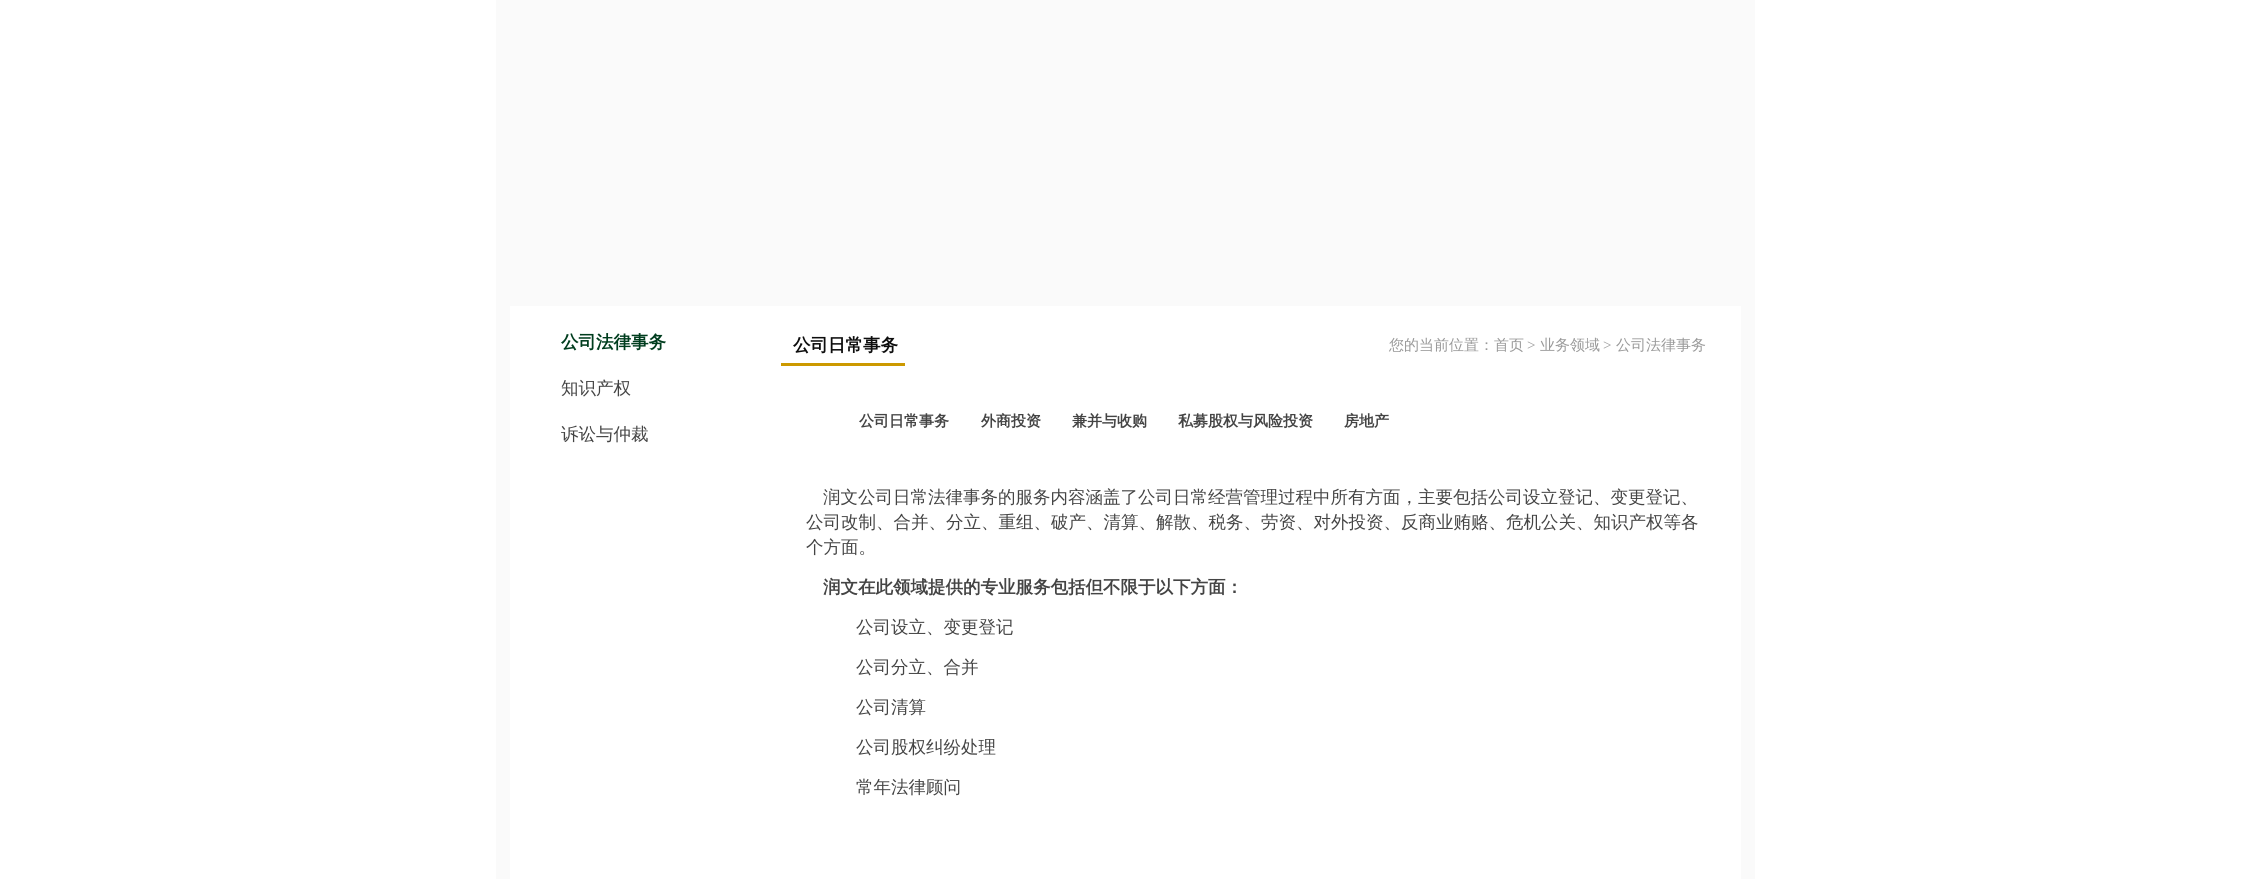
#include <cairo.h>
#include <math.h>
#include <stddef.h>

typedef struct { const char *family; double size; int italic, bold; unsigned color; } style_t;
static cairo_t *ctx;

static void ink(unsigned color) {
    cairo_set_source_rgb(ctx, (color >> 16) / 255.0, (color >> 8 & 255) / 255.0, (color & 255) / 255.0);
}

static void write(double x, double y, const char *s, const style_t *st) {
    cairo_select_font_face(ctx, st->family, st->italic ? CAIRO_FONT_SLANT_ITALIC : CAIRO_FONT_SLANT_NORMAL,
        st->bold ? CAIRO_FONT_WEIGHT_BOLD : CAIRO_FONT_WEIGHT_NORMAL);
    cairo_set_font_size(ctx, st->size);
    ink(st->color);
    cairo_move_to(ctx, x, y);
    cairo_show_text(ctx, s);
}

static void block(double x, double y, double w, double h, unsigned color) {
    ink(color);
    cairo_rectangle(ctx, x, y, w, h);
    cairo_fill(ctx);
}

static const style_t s1 = {"WenQuanYi Zen Hei", 17.5, 0, 1, 0x003d1e};
static const style_t s2 = {"WenQuanYi Zen Hei Medium", 17.5, 0, 0, 0x444444};
static const style_t s3 = {"WenQuanYi Zen Hei", 17.5, 0, 1, 0x0d0d0d};
static const style_t s4 = {"WenQuanYi Zen Hei Medium", 15, 0, 0, 0x999999};
static const style_t s5 = {"Liberation Serif", 15, 0, 0, 0x999999};
static const style_t s6 = {"WenQuanYi Zen Hei", 15, 0, 1, 0x444444};
static const style_t s7 = {"WenQuanYi Zen Hei", 17.5, 0, 1, 0x444444};

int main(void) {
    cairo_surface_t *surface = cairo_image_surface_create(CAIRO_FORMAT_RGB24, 2249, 879);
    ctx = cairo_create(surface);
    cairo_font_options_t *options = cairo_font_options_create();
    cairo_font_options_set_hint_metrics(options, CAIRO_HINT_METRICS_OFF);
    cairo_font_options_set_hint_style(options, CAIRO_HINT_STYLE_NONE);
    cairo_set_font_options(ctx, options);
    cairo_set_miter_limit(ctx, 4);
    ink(0xffffff);
    cairo_paint(ctx);
    block(496, 0, 1259, 879, 0xfafafa);
    block(510, 306, 1231, 573, 0xffffff);
    write(561, 348, "公司法律事务", &s1);
    write(561, 394, "知识产权", &s2);
    write(561, 440, "诉讼与仲裁", &s2);
    block(781, 363, 124, 3, 0xcc9900);
    write(793, 351, "公司日常事务", &s3);
    write(1389, 350, "您的当前位置：首页", &s4);
    write(1527, 350, ">", &s5);
    write(1540, 350, "业务领域", &s4);
    write(1603, 350, ">", &s5);
    write(1616, 350, "公司法律事务", &s4);
    write(859, 426, "公司日常事务", &s6);
    write(981, 426, "外商投资", &s6);
    write(1072, 426, "兼并与收购", &s6);
    write(1178, 426, "私募股权与风险投资", &s6);
    write(1344, 426, "房地产", &s6);
    write(823, 503, "润文公司日常法律事务的服务内容涵盖了公司日常经营管理过程中所有方面，主要包括公司设立登记、变更登记、", &s2);
    write(806, 528, "公司改制、合并、分立、重组、破产、清算、解散、税务、劳资、对外投资、反商业贿赂、危机公关、知识产权等各", &s2);
    write(806, 553, "个方面。", &s2);
    write(823, 593, "润文在此领域提供的专业服务包括但不限于以下方面：", &s7);
    write(856, 633, "公司设立、变更登记", &s2);
    write(856, 673, "公司分立、合并", &s2);
    write(856, 713, "公司清算", &s2);
    write(856, 753, "公司股权纠纷处理", &s2);
    write(856, 793, "常年法律顾问", &s2);
    cairo_surface_write_to_png(surface, "screenshot.png");
    cairo_font_options_destroy(options);
    cairo_destroy(ctx);
    cairo_surface_destroy(surface);
    return 0;
}
